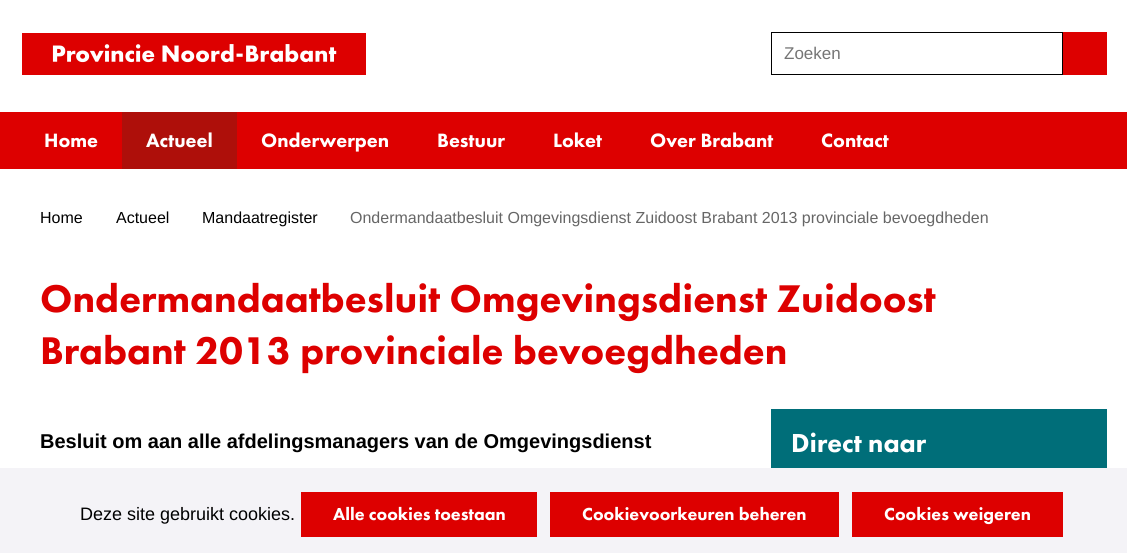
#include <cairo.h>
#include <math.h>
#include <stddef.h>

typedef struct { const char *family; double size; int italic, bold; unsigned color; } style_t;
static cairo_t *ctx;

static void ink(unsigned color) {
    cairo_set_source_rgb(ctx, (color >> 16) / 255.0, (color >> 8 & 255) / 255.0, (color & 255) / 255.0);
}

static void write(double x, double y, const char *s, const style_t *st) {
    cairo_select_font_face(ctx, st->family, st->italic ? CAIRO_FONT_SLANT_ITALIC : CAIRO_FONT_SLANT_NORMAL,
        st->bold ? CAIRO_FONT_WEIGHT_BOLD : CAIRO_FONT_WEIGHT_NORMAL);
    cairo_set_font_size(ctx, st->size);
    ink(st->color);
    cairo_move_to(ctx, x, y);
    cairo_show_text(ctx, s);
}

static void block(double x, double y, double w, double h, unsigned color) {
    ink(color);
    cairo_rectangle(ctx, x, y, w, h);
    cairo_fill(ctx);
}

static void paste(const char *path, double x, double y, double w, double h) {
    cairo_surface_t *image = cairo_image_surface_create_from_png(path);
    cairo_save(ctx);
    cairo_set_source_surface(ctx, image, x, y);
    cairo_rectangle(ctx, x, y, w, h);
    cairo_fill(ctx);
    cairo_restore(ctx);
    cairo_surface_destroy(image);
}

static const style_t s1 = {"Liberation Sans", 17, 0, 0, 0x757575};
static const style_t s2 = {"Futura PT Black", 20, 0, 0, 0xffffff};
static const style_t s3 = {"Liberation Sans", 16, 0, 0, 0x000000};
static const style_t s4 = {"Liberation Sans", 16, 0, 0, 0x666666};
static const style_t s5 = {"Futura PT Black", 40, 0, 0, 0xdd0000};
static const style_t s6 = {"Liberation Sans", 20, 0, 1, 0x000000};
static const style_t s7 = {"Futura PT Black", 27, 0, 0, 0xffffff};
static const style_t s8 = {"Liberation Sans", 18, 0, 0, 0x000000};
static const style_t s9 = {"Futura PT Black", 18, 0, 0, 0xffffff};

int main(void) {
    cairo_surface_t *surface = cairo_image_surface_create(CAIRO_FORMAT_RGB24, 1127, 553);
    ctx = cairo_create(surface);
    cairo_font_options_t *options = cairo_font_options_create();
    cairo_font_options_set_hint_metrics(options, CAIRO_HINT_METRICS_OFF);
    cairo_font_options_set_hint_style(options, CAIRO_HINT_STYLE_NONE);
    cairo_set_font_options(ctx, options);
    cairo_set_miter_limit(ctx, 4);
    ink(0xffffff);
    cairo_paint(ctx);
    paste("pic1.png", 22, 33, 344, 42);
    cairo_rectangle(ctx, 771.5, 32.5, 291, 42);
    ink(0x000000);
    cairo_set_line_width(ctx, 1);
    cairo_stroke(ctx);
    write(784, 59, "Zoeken", &s1);
    block(1063, 32, 44, 43, 0xdd0000);
    block(0, 112, 1127, 57, 0xdd0000);
    write(44, 147, "Home", &s2);
    block(122, 112, 115, 57, 0xae0f0a);
    write(146, 147, "Actueel", &s2);
    write(261, 147, "Onderwerpen", &s2);
    write(437, 147, "Bestuur", &s2);
    write(553, 147, "Loket", &s2);
    write(650, 147, "Over Brabant", &s2);
    write(821, 147, "Contact", &s2);
    write(40, 223, "Home", &s3);
    write(116, 223, "Actueel", &s3);
    write(202, 223, "Mandaatregister", &s3);
    write(350, 223, "Ondermandaatbesluit Omgevingsdienst Zuidoost Brabant 2013 provinciale bevoegdheden", &s4);
    write(40, 312, "Ondermandaatbesluit Omgevingsdienst Zuidoost", &s5);
    write(40, 364, "Brabant 2013 provinciale bevoegdheden", &s5);
    write(40, 448, "Besluit om aan alle afdelingsmanagers van de Omgevingsdienst", &s6);
    block(771, 409, 336, 59, 0x006e79);
    write(791, 452, "Direct naar", &s7);
    block(0, 468, 1127, 85, 0xf4f3f7);
    write(80, 520, "Deze site gebruikt cookies.", &s8);
    block(301, 492, 236, 45, 0xdd0000);
    write(333, 520, "Alle cookies toestaan", &s9);
    block(550, 492, 289, 45, 0xdd0000);
    write(582, 520, "Cookievoorkeuren beheren", &s9);
    block(852, 492, 211, 45, 0xdd0000);
    write(884, 520, "Cookies weigeren", &s9);
    cairo_surface_write_to_png(surface, "screenshot.png");
    cairo_font_options_destroy(options);
    cairo_destroy(ctx);
    cairo_surface_destroy(surface);
    return 0;
}
